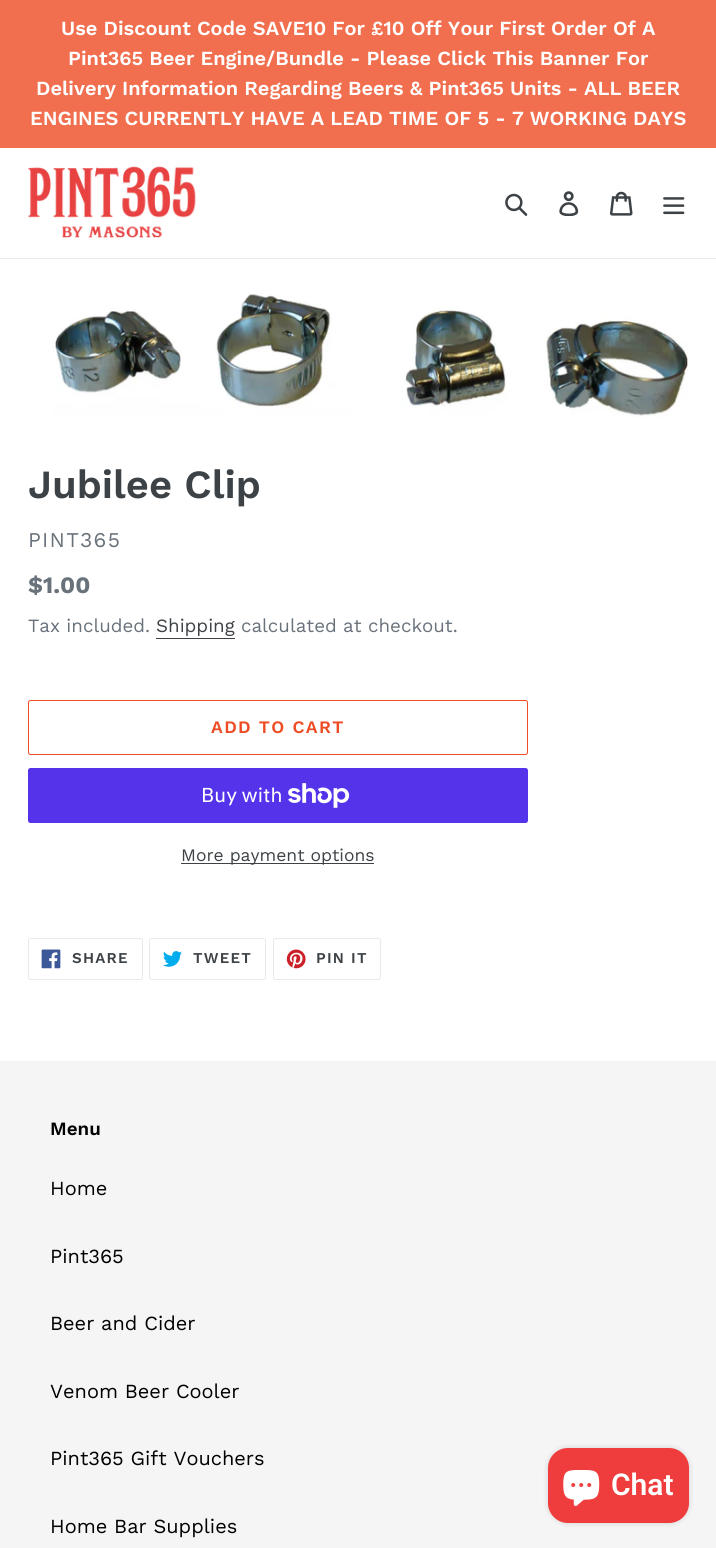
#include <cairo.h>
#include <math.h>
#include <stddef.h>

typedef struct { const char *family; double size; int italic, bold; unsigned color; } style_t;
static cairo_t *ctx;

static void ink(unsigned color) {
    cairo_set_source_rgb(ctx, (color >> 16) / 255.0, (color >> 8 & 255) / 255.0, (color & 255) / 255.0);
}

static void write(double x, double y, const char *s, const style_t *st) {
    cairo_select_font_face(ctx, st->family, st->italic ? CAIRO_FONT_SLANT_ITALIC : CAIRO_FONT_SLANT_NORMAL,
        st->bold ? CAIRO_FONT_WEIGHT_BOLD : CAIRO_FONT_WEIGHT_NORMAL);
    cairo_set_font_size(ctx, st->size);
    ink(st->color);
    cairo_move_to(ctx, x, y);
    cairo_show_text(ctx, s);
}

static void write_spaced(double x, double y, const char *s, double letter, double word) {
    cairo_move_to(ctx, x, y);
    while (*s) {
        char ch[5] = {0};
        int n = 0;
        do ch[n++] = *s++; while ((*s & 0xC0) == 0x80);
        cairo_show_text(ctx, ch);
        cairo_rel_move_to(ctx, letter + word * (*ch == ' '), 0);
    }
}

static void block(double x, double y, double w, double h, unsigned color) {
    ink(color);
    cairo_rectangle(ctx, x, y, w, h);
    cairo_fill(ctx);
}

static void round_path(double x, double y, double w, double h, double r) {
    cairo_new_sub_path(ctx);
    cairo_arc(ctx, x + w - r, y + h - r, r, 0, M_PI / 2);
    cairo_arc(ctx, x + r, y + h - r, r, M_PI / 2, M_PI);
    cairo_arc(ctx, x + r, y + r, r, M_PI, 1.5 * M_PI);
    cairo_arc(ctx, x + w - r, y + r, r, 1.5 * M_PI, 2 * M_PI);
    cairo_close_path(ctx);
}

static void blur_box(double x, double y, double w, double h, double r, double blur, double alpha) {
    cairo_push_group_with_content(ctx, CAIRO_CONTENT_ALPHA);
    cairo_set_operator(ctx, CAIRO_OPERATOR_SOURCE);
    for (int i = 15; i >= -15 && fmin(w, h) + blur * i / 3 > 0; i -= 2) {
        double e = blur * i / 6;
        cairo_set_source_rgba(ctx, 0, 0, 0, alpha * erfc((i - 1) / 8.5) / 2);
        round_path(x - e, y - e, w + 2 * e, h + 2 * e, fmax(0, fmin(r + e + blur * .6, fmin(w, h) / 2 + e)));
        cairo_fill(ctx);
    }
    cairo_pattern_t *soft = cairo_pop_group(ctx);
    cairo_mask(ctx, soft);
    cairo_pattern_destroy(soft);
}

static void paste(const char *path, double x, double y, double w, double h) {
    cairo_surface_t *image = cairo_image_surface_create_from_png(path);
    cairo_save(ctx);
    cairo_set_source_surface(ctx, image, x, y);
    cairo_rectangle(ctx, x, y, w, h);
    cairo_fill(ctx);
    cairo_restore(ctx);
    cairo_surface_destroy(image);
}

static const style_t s1 = {"Work Sans SemiBold", 20, 0, 0, 0xffffff};
static const style_t s2 = {"Work Sans SemiBold", 40, 0, 0, 0x3d4246};
static const style_t s3 = {"Work Sans", 23.5, 0, 1, 0x69727b};
static const style_t s4 = {"Work Sans", 18.75, 0, 0, 0x69727b};
static const style_t s5 = {"Work Sans", 18.75, 0, 0, 0x3d4246};
static const style_t s6 = {"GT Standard", 20, 0, 0, 0xffffff};
static const style_t s7 = {"Work Sans", 17.5, 0, 0, 0x3d4246};
static const style_t s8 = {"Work Sans SemiBold", 18.75, 0, 0, 0x000000};
static const style_t s9 = {"Work Sans", 20, 0, 0, 0x000000};
static const style_t s10 = {"Roboto SemiBold", 30, 0, 0, 0xffffff};

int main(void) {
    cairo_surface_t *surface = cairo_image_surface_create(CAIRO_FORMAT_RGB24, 716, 1548);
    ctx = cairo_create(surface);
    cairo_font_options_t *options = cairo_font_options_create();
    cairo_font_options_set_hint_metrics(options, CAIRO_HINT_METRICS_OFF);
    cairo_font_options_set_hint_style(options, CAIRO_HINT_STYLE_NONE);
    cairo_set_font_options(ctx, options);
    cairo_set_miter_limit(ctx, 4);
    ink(0xffffff);
    cairo_paint(ctx);
    block(0, 0, 716, 148, 0xf16f4f);
    write(61, 35, "Use Discount Code SAVE10 For £10 Off Your First Order Of A", &s1);
    write(68, 65, "Pint365 Beer Engine/Bundle - Please Click This Banner For", &s1);
    write(36, 95, "Delivery Information Regarding Beers & Pint365 Units - ALL BEER", &s1);
    write(30, 125, "ENGINES CURRENTLY HAVE A LEAD TIME OF 5 - 7 WORKING DAYS", &s1);
    block(0, 258, 716, 1, 0xe8e9eb);
    paste("pic1.png", 28, 166, 168, 72);
    paste("pic2.png", 505, 193, 23, 23);
    paste("pic3.png", 559, 191, 20, 25);
    paste("pic4.png", 610, 191, 23, 25);
    paste("pic5.png", 663, 197, 22, 18);
    paste("pic6.png", 53, 294, 636, 124);
    write(28, 498, "Jubilee Clip", &s2);
    cairo_select_font_face(ctx, "Work Sans", CAIRO_FONT_SLANT_NORMAL, CAIRO_FONT_WEIGHT_NORMAL);
    cairo_set_font_size(ctx, 21);
    ink(0x69727b);
    write_spaced(28, 547, "PINT365", 1.25, 0);
    write(28, 593, "$1.00", &s3);
    write(28, 632, "Tax included.", &s4);
    write(156, 632, "Shipping", &s5);
    block(156, 638, 79, 1, 0x3d4246);
    write(241, 632, "calculated at checkout.", &s4);
    round_path(28.5, 700.5, 499, 54, 2);
    ink(0xee4c24);
    cairo_set_line_width(ctx, 1);
    cairo_stroke(ctx);
    cairo_select_font_face(ctx, "Work Sans SemiBold", CAIRO_FONT_SLANT_NORMAL, CAIRO_FONT_WEIGHT_NORMAL);
    cairo_set_font_size(ctx, 17.5);
    write_spaced(211, 733, "ADD TO CART", 1.4, 0);
    ink(0x5433eb);
    round_path(28, 768, 500, 55, 2.5);
    cairo_fill(ctx);
    write(201, 802, "Buy with", &s6);
    paste("pic7.png", 288, 783, 62, 25);
    block(181, 863, 193, 1, 0x3d4246);
    write(181, 861, "More payment options", &s7);
    round_path(28.5, 938.5, 114, 41, 2);
    ink(0xe8e9eb);
    cairo_stroke(ctx);
    paste("pic8.png", 41, 949, 20, 20);
    cairo_select_font_face(ctx, "Work Sans SemiBold", CAIRO_FONT_SLANT_NORMAL, CAIRO_FONT_WEIGHT_NORMAL);
    cairo_set_font_size(ctx, 15);
    ink(0x3d4246);
    write_spaced(72, 963, "SHARE", 1.25, 0);
    round_path(149.5, 938.5, 116, 41, 2);
    ink(0xe8e9eb);
    cairo_stroke(ctx);
    paste("pic9.png", 163, 951, 19, 16);
    ink(0x3d4246);
    write_spaced(193, 963, "TWEET", 1.25, 0);
    round_path(273.5, 938.5, 107, 41, 2);
    ink(0xe8e9eb);
    cairo_stroke(ctx);
    paste("pic10.png", 286, 949, 20, 20);
    ink(0x3d4246);
    write_spaced(316, 963, "PIN IT", 1.25, 0);
    block(0, 1061, 716, 487, 0xf5f5f5);
    write(50, 1135, "Menu", &s8);
    write(50, 1195, "Home", &s9);
    write(50, 1263, "Pint365", &s9);
    write(50, 1330, "Beer and Cider", &s9);
    write(50, 1398, "Venom Beer Cooler", &s9);
    write(50, 1465, "Pint365 Gift Vouchers", &s9);
    write(50, 1533, "Home Bar Supplies", &s9);
    ink(0x000000);
    blur_box(548, 1448, 141, 75, 20, 3, 0.15);
    ink(0xef3c3c);
    round_path(548, 1448, 141, 75, 20);
    cairo_fill(ctx);
    paste("pic11.png", 563, 1470, 37, 36);
    write(611, 1495, "Chat", &s10);
    cairo_surface_write_to_png(surface, "screenshot.png");
    cairo_font_options_destroy(options);
    cairo_destroy(ctx);
    cairo_surface_destroy(surface);
    return 0;
}
